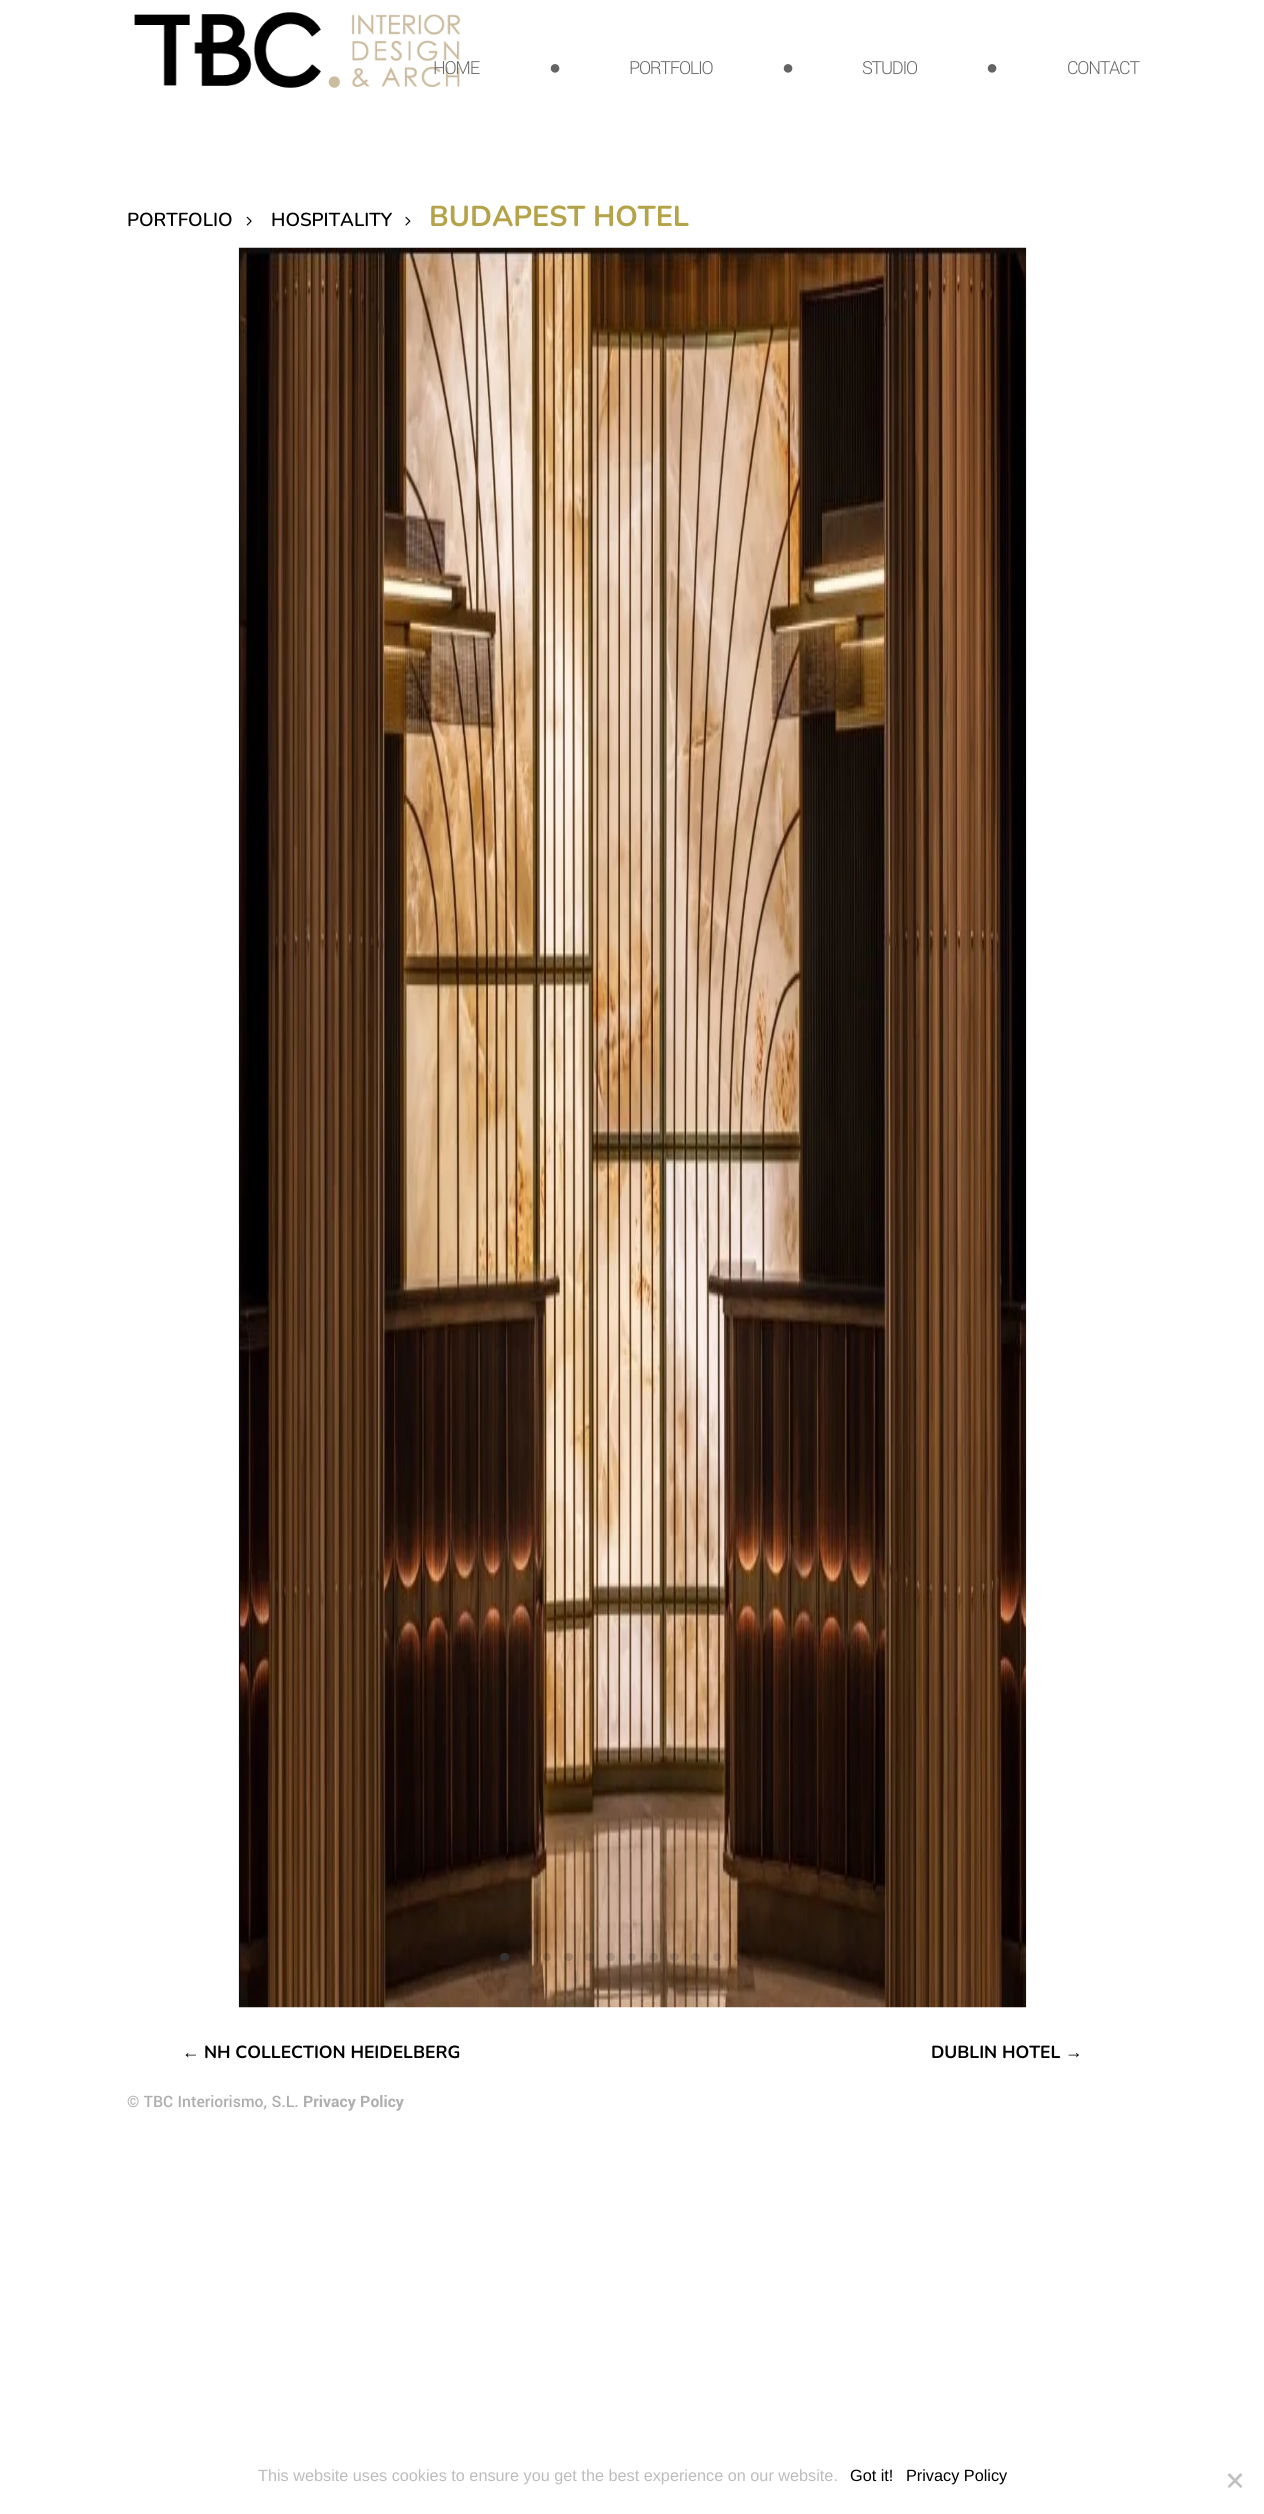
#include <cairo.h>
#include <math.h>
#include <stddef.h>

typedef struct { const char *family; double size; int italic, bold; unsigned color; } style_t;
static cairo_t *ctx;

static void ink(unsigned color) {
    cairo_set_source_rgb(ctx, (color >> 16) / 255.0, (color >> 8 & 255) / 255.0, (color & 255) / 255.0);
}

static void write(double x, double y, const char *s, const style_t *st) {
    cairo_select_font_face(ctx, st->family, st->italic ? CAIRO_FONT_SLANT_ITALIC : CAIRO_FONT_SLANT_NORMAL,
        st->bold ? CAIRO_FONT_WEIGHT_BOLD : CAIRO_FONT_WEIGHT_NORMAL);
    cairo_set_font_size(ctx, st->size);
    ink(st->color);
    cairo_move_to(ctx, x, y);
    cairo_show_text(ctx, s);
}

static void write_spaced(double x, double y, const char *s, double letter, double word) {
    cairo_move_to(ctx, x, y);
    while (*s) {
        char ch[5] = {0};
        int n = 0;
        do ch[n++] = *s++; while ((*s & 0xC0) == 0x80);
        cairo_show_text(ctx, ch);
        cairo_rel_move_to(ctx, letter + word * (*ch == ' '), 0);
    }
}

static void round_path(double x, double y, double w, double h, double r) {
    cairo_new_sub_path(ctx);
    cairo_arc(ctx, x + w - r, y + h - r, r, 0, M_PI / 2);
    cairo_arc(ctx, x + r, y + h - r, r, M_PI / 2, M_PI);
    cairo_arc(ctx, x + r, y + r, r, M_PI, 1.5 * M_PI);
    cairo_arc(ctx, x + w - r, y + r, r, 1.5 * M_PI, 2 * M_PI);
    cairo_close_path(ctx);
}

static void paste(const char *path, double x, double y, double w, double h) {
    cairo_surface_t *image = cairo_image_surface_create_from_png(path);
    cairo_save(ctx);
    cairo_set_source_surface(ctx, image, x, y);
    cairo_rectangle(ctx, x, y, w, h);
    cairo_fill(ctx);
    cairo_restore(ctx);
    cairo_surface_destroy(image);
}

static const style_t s1 = {"Nunito SemiBold", 18.75, 0, 0, 0x000000};
static const style_t s2 = {"Nunito", 28.75, 0, 1, 0xb5a34a};
static const style_t s3 = {"Liberation Sans", 17.5, 0, 1, 0x000000};
static const style_t s4 = {"Nunito", 17.5, 0, 1, 0x000000};
static const style_t s5 = {"Yantramanav Medium", 17.5, 0, 0, 0xaeaeae};
static const style_t s6 = {"Yantramanav", 17.5, 0, 1, 0xaeaeae};
static const style_t s7 = {"Liberation Sans", 16.25, 0, 0, 0xbcbcbc};
static const style_t s8 = {"Liberation Sans", 16.25, 0, 0, 0x000000};

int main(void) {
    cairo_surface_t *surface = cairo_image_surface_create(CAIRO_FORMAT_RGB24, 1264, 2514);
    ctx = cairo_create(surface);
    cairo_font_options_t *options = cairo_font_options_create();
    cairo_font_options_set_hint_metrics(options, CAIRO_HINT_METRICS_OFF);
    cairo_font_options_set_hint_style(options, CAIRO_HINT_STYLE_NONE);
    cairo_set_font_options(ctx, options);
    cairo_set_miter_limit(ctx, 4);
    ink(0xffffff);
    cairo_paint(ctx);
    paste("pic1.png", 134, 12, 327, 76);
    cairo_select_font_face(ctx, "Yantramanav Light", CAIRO_FONT_SLANT_NORMAL, CAIRO_FONT_WEIGHT_NORMAL);
    cairo_set_font_size(ctx, 20);
    ink(0x646463);
    write_spaced(433, 74, "HOME", -1.25, 0);
    cairo_select_font_face(ctx, "Liberation Sans", CAIRO_FONT_SLANT_NORMAL, CAIRO_FONT_WEIGHT_NORMAL);
    write_spaced(549, 74, "●", -1.25, 0);
    cairo_select_font_face(ctx, "Yantramanav Light", CAIRO_FONT_SLANT_NORMAL, CAIRO_FONT_WEIGHT_NORMAL);
    write_spaced(629, 74, "PORTFOLIO", -1.25, 0);
    cairo_select_font_face(ctx, "Liberation Sans", CAIRO_FONT_SLANT_NORMAL, CAIRO_FONT_WEIGHT_NORMAL);
    write_spaced(782, 74, "●", -1.25, 0);
    cairo_select_font_face(ctx, "Yantramanav Light", CAIRO_FONT_SLANT_NORMAL, CAIRO_FONT_WEIGHT_NORMAL);
    write_spaced(862, 74, "STUDIO", -1.25, 0);
    cairo_select_font_face(ctx, "Liberation Sans", CAIRO_FONT_SLANT_NORMAL, CAIRO_FONT_WEIGHT_NORMAL);
    write_spaced(986, 74, "●", -1.25, 0);
    cairo_select_font_face(ctx, "Yantramanav Light", CAIRO_FONT_SLANT_NORMAL, CAIRO_FONT_WEIGHT_NORMAL);
    write_spaced(1067, 74, "CONTACT", -1.25, 0);
    write(127, 226, "PORTFOLIO", &s1);
    paste("pic2.png", 246, 216, 6, 10);
    write(271, 226, "HOSPITALITY", &s1);
    paste("pic3.png", 405, 216, 6, 10);
    write(429, 226, "BUDAPEST HOTEL", &s2);
    paste("pic4.png", 238, 247, 789, 1761);
    ink(0x333333);
    round_path(500, 1953, 9, 8, 4);
    cairo_fill(ctx);
    cairo_set_source_rgba(ctx, 0, 0, 0, 0.15);
    round_path(521, 1953, 9, 8, 4);
    cairo_fill(ctx);
    cairo_arc(ctx, 547, 1957, 4, 0, 2 * M_PI);
    cairo_fill(ctx);
    round_path(564, 1953, 9, 8, 4);
    cairo_fill(ctx);
    round_path(585, 1953, 9, 8, 4);
    cairo_fill(ctx);
    round_path(606, 1953, 9, 8, 4);
    cairo_fill(ctx);
    cairo_arc(ctx, 632, 1957, 4, 0, 2 * M_PI);
    cairo_fill(ctx);
    round_path(649, 1953, 9, 8, 4);
    cairo_fill(ctx);
    round_path(670, 1953, 9, 8, 4);
    cairo_fill(ctx);
    round_path(691, 1953, 9, 8, 4);
    cairo_fill(ctx);
    cairo_arc(ctx, 717, 1957, 4, 0, 2 * M_PI);
    cairo_fill(ctx);
    round_path(734, 1953, 9, 8, 4);
    cairo_fill(ctx);
    round_path(755, 1953, 9, 8, 4);
    cairo_fill(ctx);
    write(182, 2058, "←", &s3);
    write(204, 2058, "NH COLLECTION HEIDELBERG", &s4);
    write(931, 2058, "DUBLIN HOTEL", &s4);
    write(1065, 2058, "→", &s3);
    write(127, 2107, "© TBC Interiorismo, S.L.", &s5);
    write(303, 2107, "Privacy Policy", &s6);
    write(258, 2481, "This website uses cookies to ensure you get the best experience on our website.", &s7);
    write(850, 2481, "Got it!", &s8);
    write(906, 2481, "Privacy Policy", &s8);
    ink(0xc0c0c0);
    cairo_new_path(ctx);
    cairo_move_to(ctx, 1240.5, 2473);
    cairo_line_to(ctx, 1242.5, 2475);
    cairo_line_to(ctx, 1229.5, 2488);
    cairo_line_to(ctx, 1227.5, 2486.5);
    cairo_close_path(ctx);
    cairo_fill(ctx);
    cairo_new_path(ctx);
    cairo_move_to(ctx, 1227.5, 2475);
    cairo_line_to(ctx, 1229.5, 2473);
    cairo_line_to(ctx, 1242.5, 2486.5);
    cairo_line_to(ctx, 1240.5, 2488);
    cairo_close_path(ctx);
    cairo_fill(ctx);
    cairo_surface_write_to_png(surface, "screenshot.png");
    cairo_font_options_destroy(options);
    cairo_destroy(ctx);
    cairo_surface_destroy(surface);
    return 0;
}
